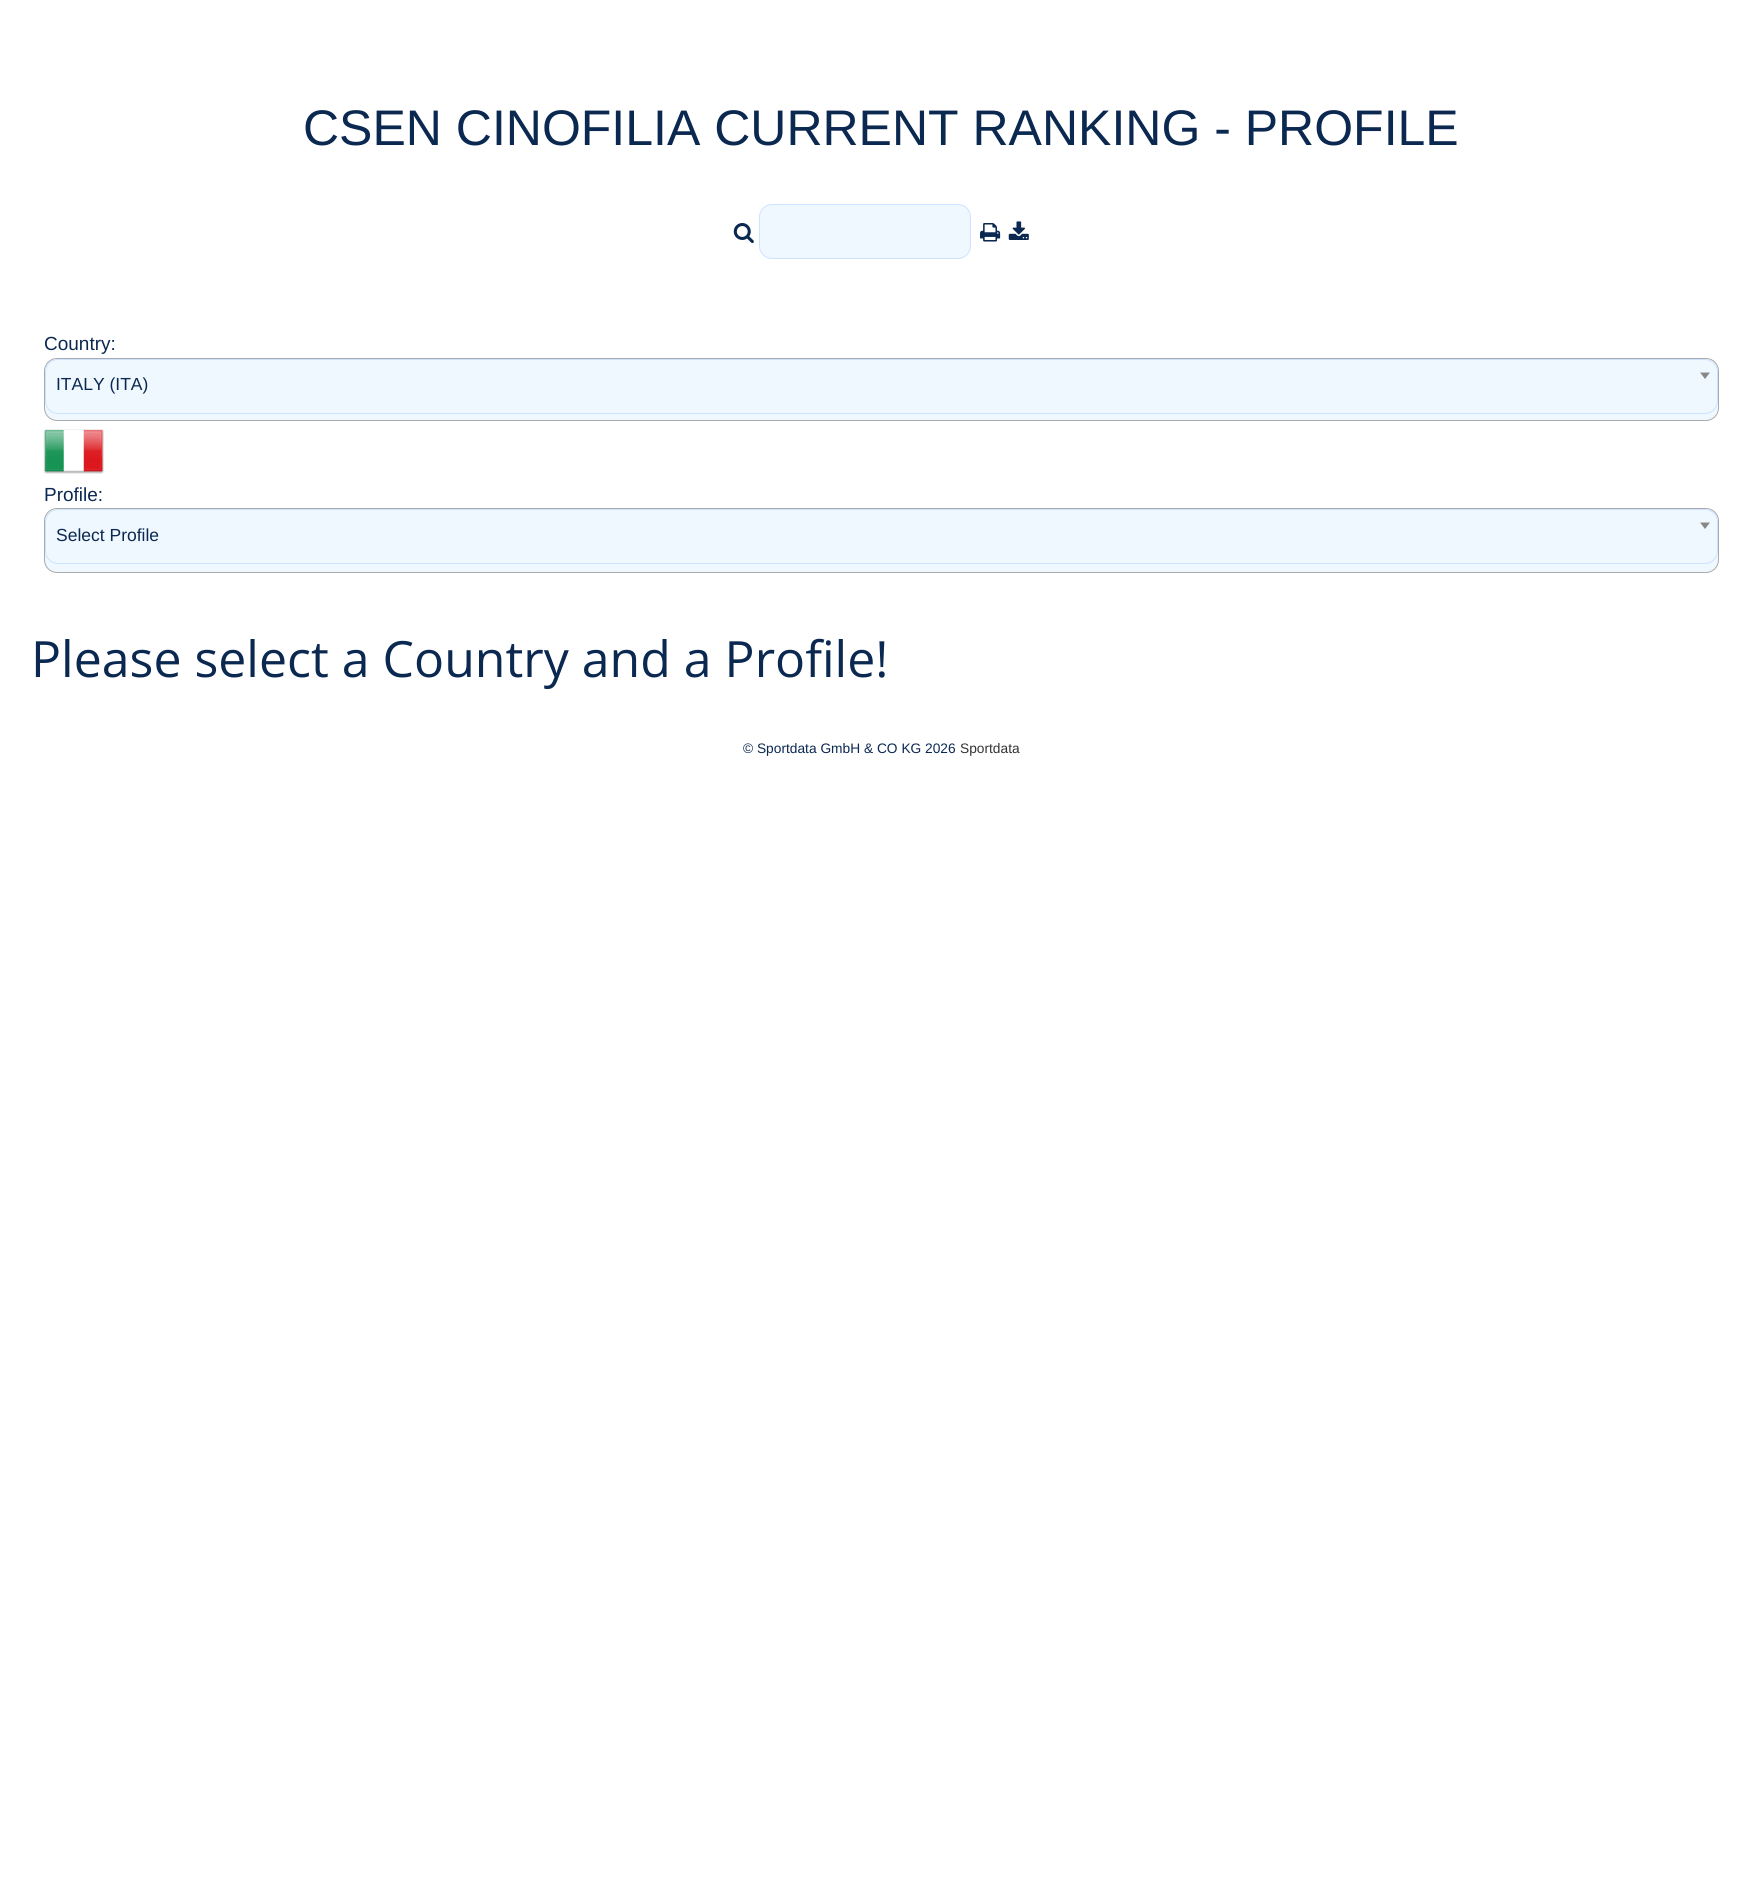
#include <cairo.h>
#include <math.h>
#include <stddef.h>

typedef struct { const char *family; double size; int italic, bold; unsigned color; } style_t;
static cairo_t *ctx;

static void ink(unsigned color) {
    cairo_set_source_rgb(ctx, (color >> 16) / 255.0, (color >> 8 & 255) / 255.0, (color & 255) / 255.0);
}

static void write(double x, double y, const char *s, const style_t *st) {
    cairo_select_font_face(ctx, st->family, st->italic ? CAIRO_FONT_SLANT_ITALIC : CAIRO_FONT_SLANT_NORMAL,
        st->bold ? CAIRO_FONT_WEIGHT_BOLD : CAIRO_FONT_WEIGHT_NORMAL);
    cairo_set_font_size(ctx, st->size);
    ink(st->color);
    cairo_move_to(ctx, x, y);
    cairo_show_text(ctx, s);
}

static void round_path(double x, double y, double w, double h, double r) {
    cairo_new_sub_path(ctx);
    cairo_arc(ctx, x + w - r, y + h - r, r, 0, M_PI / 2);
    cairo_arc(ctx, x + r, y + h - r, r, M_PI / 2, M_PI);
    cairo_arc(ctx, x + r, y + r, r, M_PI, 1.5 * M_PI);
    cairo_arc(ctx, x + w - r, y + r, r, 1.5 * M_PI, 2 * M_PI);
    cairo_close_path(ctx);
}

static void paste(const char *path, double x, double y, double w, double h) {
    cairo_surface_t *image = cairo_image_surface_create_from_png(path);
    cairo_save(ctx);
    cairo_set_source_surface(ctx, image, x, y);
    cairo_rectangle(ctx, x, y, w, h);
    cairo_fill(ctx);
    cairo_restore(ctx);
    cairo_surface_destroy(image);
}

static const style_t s1 = {"Liberation Sans", 50, 0, 0, 0x0b2851};
static const style_t s2 = {"Liberation Sans", 19, 0, 0, 0x0b2851};
static const style_t s3 = {"Liberation Sans", 17.5, 0, 0, 0x0b2851};
static const style_t s4 = {"Open Sans", 50, 0, 0, 0x0b2851};
static const style_t s5 = {"Liberation Sans", 13.75, 0, 0, 0x0b2851};
static const style_t s6 = {"Liberation Sans", 13.75, 0, 0, 0x333333};

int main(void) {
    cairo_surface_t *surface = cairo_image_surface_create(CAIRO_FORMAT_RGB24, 1762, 1885);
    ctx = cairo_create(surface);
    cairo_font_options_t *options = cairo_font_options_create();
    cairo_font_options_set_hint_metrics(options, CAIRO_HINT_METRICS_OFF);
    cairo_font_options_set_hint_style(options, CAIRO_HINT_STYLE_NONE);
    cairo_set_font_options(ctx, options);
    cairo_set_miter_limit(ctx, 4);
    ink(0xffffff);
    cairo_paint(ctx);
    write(303, 145, "CSEN CINOFILIA CURRENT RANKING - PROFILE", &s1);
    paste("pic1.png", 733, 223, 21, 21);
    ink(0xf0f8ff);
    round_path(759.5, 204.5, 211, 54, 12.5);
    cairo_fill_preserve(ctx);
    ink(0xcde2ff);
    cairo_set_line_width(ctx, 1);
    cairo_stroke(ctx);
    paste("pic2.png", 980, 223, 21, 19);
    paste("pic3.png", 1008, 221, 21, 19);
    write(44, 350, "Country:", &s2);
    ink(0xf0f8ff);
    round_path(44.5, 358.5, 1674, 62, 12.5);
    cairo_fill_preserve(ctx);
    ink(0xaaaaaa);
    cairo_stroke(ctx);
    ink(0xf0f8ff);
    round_path(45.5, 359.5, 1672, 54, 12.5);
    cairo_fill_preserve(ctx);
    ink(0xcde2ff);
    cairo_stroke(ctx);
    ink(0x888888);
    cairo_new_path(ctx);
    cairo_move_to(ctx, 1700, 372.5);
    cairo_line_to(ctx, 1710, 372.5);
    cairo_line_to(ctx, 1705, 379);
    cairo_close_path(ctx);
    cairo_fill(ctx);
    write(56, 390, "ITALY (ITA)", &s3);
    paste("pic4.png", 43, 429, 61, 45);
    write(44, 501, "Profile:", &s2);
    ink(0xf0f8ff);
    round_path(44.5, 508.5, 1674, 64, 12.5);
    cairo_fill_preserve(ctx);
    ink(0xaaaaaa);
    cairo_stroke(ctx);
    ink(0xf0f8ff);
    round_path(45.5, 509.5, 1672, 54, 12.5);
    cairo_fill_preserve(ctx);
    ink(0xcde2ff);
    cairo_stroke(ctx);
    ink(0x888888);
    cairo_new_path(ctx);
    cairo_move_to(ctx, 1700, 522.5);
    cairo_line_to(ctx, 1710, 522.5);
    cairo_line_to(ctx, 1705, 529);
    cairo_close_path(ctx);
    cairo_fill(ctx);
    write(56, 541, "Select Profile", &s3);
    write(31, 677, "Please select a Country and a Profile!", &s4);
    write(743, 753, "© Sportdata GmbH & CO KG 2026", &s5);
    write(960, 753, "Sportdata", &s6);
    cairo_surface_write_to_png(surface, "screenshot.png");
    cairo_font_options_destroy(options);
    cairo_destroy(ctx);
    cairo_surface_destroy(surface);
    return 0;
}
